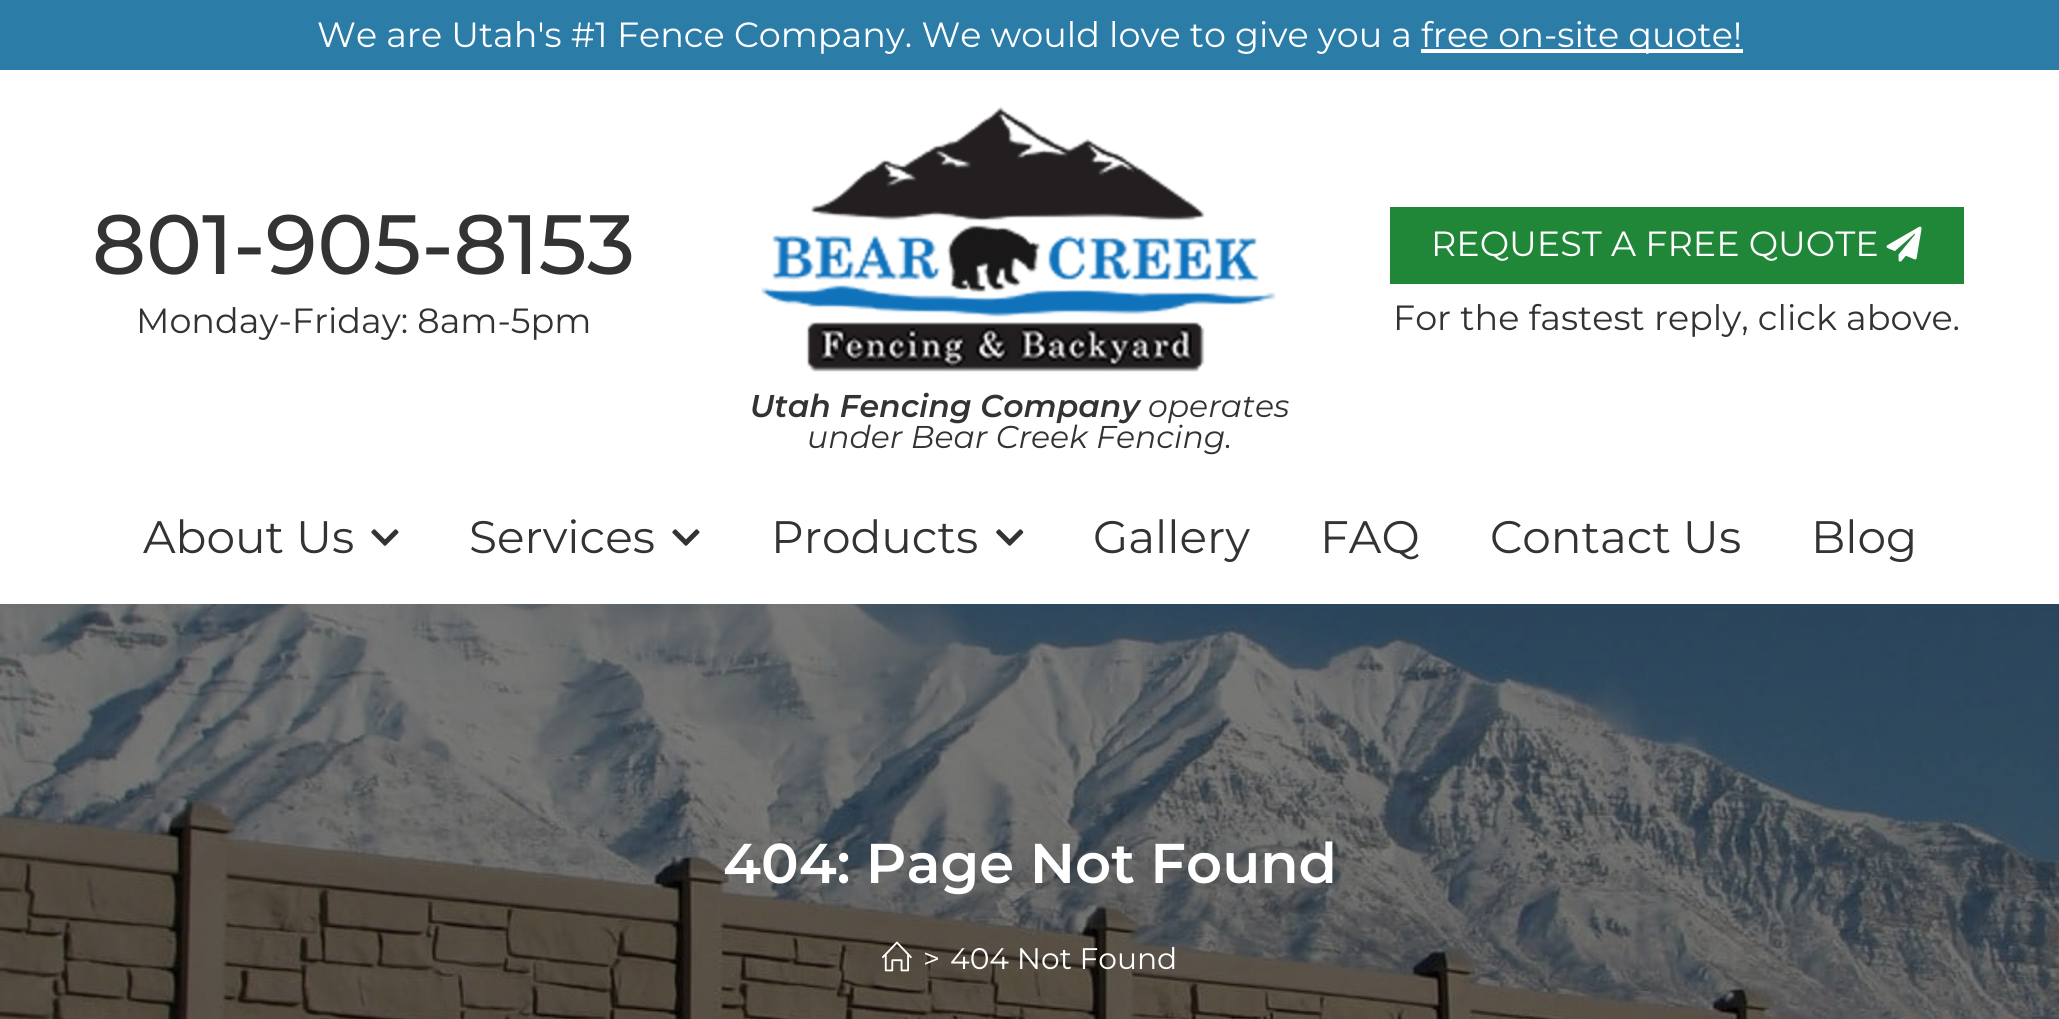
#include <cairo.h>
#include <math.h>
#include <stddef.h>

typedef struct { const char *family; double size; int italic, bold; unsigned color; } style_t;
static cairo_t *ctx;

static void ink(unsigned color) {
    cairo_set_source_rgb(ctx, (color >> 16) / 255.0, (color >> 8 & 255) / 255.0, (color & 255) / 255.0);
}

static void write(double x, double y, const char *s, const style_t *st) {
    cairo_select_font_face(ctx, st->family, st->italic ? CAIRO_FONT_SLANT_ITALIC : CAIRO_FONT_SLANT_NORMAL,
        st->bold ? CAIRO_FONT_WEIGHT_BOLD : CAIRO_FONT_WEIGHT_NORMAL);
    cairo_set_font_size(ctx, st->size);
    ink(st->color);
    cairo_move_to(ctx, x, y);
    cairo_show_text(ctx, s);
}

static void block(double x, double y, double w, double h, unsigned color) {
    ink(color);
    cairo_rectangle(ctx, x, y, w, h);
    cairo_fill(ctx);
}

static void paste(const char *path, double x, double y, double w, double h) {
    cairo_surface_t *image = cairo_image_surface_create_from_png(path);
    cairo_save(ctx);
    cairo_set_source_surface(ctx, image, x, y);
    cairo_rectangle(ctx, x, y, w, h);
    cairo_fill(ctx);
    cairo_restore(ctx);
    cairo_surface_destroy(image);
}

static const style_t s1 = {"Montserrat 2 Thin", 35, 0, 0, 0xffffff};
static const style_t s2 = {"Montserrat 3 Thin", 84, 0, 0, 0x333333};
static const style_t s3 = {"Montserrat 2 Thin", 35, 0, 0, 0x333333};
static const style_t s4 = {"Montserrat Thin", 31.5, 1, 0, 0x333333};
static const style_t s5 = {"Montserrat 2 Thin", 31.5, 1, 0, 0x333333};
static const style_t s6 = {"Montserrat 2 Thin", 45.5, 0, 0, 0x333333};
static const style_t s7 = {"Montserrat Thin", 56, 0, 0, 0xffffff};
static const style_t s8 = {"Montserrat 2 Thin", 29.75, 0, 0, 0xffffff};

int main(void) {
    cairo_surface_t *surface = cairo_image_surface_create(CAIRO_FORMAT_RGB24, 2059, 1019);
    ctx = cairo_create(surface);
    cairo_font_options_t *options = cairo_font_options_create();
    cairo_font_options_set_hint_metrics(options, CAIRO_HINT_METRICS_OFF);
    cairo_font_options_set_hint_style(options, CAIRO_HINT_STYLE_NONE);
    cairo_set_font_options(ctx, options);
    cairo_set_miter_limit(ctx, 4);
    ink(0xffffff);
    cairo_paint(ctx);
    block(0, 0, 2059, 70, 0x2c7ca8);
    write(317, 47, "We are Utah's #1 Fence Company. We would love to give you a", &s1);
    block(1421, 49, 322, 4, 0xffffff);
    write(1421, 47, "free on-site quote!", &s1);
    write(92, 274, "801-905-8153", &s2);
    write(136, 333, "Monday-Friday: 8am-5pm", &s3);
    block(1390, 207, 574, 77, 0x208739);
    write(1431, 256, "REQUEST A FREE QUOTE", &s1);
    paste("pic1.png", 1886, 226, 36, 36);
    write(1393, 330, "For the fastest reply, click above.", &s3);
    paste("pic2.png", 761, 106, 515, 266);
    write(750, 417, "Utah Fencing Company", &s4);
    write(1148, 417, "operates", &s5);
    write(807, 448, "under Bear Creek Fencing.", &s5);
    write(143, 553, "About Us", &s6);
    paste("pic3.png", 371, 529, 28, 17);
    write(469, 553, "Services", &s6);
    paste("pic3.png", 672, 529, 28, 17);
    write(771, 553, "Products", &s6);
    paste("pic4.png", 996, 529, 28, 17);
    write(1093, 553, "Gallery", &s6);
    write(1320, 553, "FAQ", &s6);
    write(1490, 553, "Contact Us", &s6);
    write(1811, 553, "Blog", &s6);
    paste("pic5.png", 0, 604, 2059, 415);
    write(723, 883, "404: Page Not Found", &s7);
    paste("pic6.png", 882, 941, 30, 31);
    write(923, 969, ">", &s8);
    write(950, 969, "404 Not Found", &s8);
    cairo_surface_write_to_png(surface, "screenshot.png");
    cairo_font_options_destroy(options);
    cairo_destroy(ctx);
    cairo_surface_destroy(surface);
    return 0;
}
